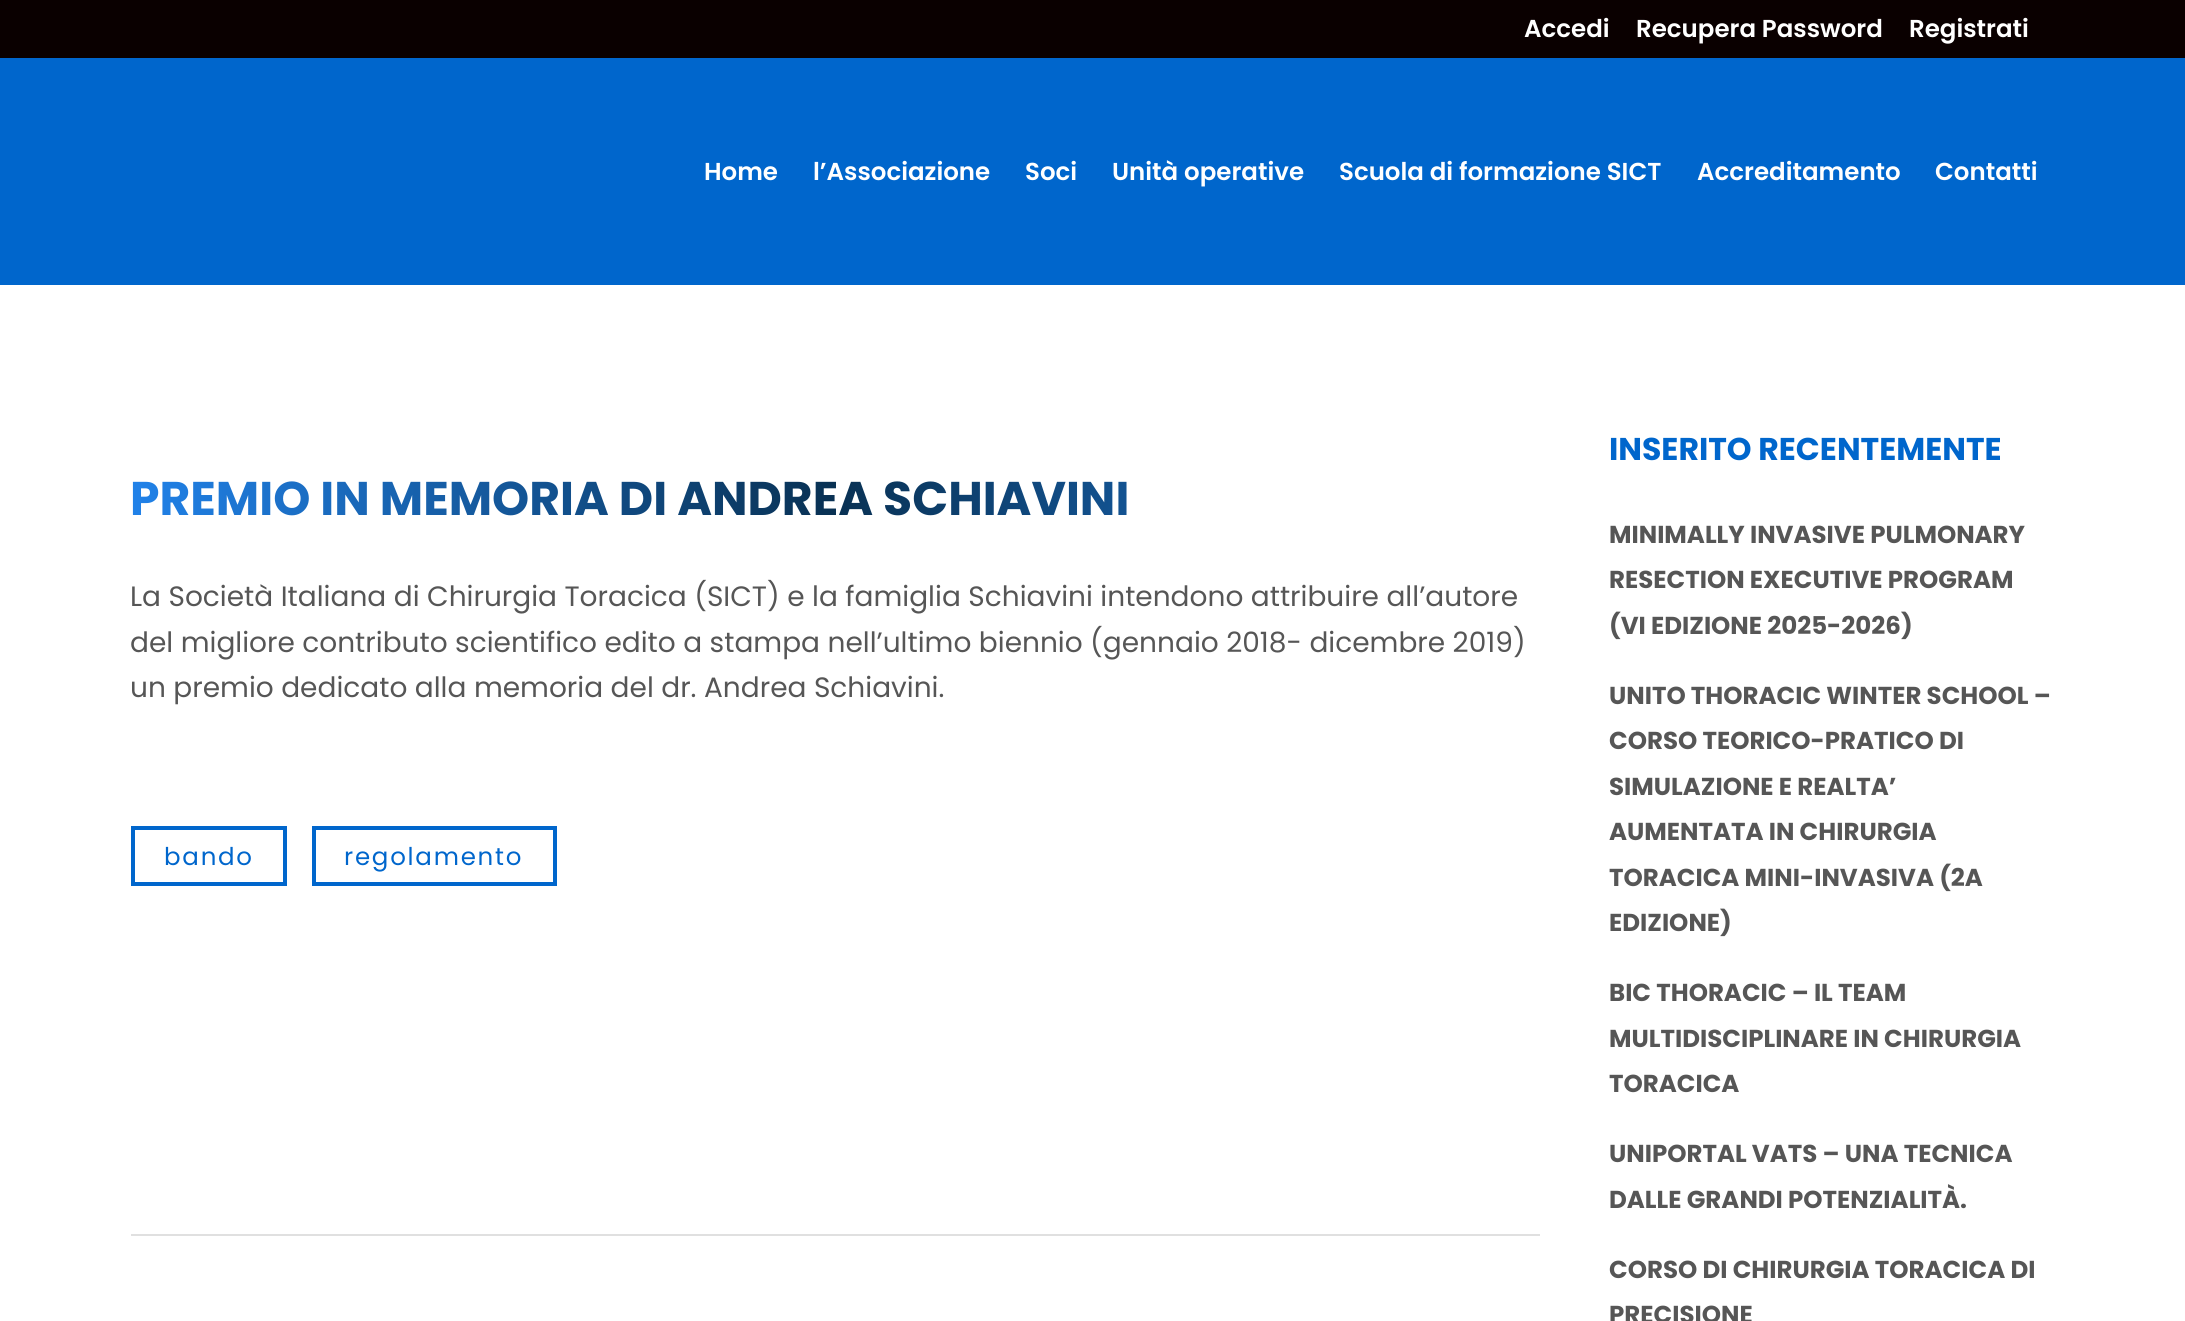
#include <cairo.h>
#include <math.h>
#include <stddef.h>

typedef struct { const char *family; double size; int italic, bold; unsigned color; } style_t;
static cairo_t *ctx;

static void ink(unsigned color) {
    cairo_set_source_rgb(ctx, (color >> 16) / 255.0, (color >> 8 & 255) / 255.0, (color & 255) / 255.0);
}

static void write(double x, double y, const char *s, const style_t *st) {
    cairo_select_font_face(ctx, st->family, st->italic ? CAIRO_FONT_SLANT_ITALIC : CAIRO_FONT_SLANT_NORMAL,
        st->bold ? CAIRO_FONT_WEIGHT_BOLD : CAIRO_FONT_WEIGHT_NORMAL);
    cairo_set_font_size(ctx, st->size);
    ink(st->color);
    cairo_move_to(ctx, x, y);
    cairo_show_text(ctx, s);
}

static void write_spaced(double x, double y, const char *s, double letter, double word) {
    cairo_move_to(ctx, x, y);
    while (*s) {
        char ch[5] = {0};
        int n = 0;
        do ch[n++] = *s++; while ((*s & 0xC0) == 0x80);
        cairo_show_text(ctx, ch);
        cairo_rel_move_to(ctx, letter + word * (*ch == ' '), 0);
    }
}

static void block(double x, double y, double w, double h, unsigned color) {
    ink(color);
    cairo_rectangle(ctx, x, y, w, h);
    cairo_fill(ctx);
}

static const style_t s1 = {"Poppins SemiBold", 24.5, 0, 0, 0xffffff};
static const style_t s2 = {"Poppins", 28, 0, 0, 0x565656};
static const style_t s3 = {"Poppins", 31.5, 0, 1, 0x0066cc};
static const style_t s4 = {"Poppins", 24.5, 0, 1, 0x565656};

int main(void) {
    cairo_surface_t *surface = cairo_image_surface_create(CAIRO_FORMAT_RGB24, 2185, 1321);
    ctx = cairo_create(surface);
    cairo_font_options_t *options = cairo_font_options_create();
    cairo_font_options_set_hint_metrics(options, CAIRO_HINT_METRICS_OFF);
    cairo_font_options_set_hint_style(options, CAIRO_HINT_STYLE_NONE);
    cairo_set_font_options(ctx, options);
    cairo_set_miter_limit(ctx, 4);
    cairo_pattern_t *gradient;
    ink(0xffffff);
    cairo_paint(ctx);
    block(0, 0, 2185, 58, 0x0a0000);
    write(1524, 37, "Accedi", &s1);
    write(1636, 37, "Recupera Password", &s1);
    write(1909, 37, "Registrati", &s1);
    block(0, 58, 2185, 227, 0x0066cc);
    write(704, 180, "Home", &s1);
    write(813, 180, "l’Associazione", &s1);
    write(1025, 180, "Soci", &s1);
    write(1112, 180, "Unità operative", &s1);
    write(1339, 180, "Scuola di formazione SICT", &s1);
    write(1697, 180, "Accreditamento", &s1);
    write(1935, 180, "Contatti", &s1);
    cairo_select_font_face(ctx, "Poppins", CAIRO_FONT_SLANT_NORMAL, CAIRO_FONT_WEIGHT_BOLD);
    cairo_set_font_size(ctx, 47.25);
    gradient = cairo_pattern_create_linear(1539, 498, 130, 498);
    cairo_pattern_add_color_stop_rgba(gradient, 0, 0.129, 0.51, 0.914, 1);
    cairo_pattern_add_color_stop_rgba(gradient, 0.5, 0.035, 0.192, 0.325, 1);
    cairo_pattern_add_color_stop_rgba(gradient, 1, 0.129, 0.51, 0.914, 1);
    cairo_set_source(ctx, gradient);
    cairo_pattern_destroy(gradient);
    cairo_move_to(ctx, 130, 515);
    cairo_show_text(ctx, "PREMIO IN MEMORIA DI ANDREA SCHIAVINI");
    write(130, 606, "La Società Italiana di Chirurgia Toracica (SICT) e la famiglia Schiavini intendono attribuire all’autore", &s2);
    write(130, 652, "del migliore contributo scientifico edito a stampa nell’ultimo biennio (gennaio 2018- dicembre 2019)", &s2);
    write(130, 697, "un premio dedicato alla memoria del dr. Andrea Schiavini.", &s2);
    cairo_rectangle(ctx, 133, 828, 152, 56);
    ink(0x0066cc);
    cairo_set_line_width(ctx, 4);
    cairo_stroke(ctx);
    cairo_set_font_size(ctx, 24.5);
    write_spaced(164, 865, "bando", 1.75, 0);
    cairo_rectangle(ctx, 314, 828, 241, 56);
    cairo_stroke(ctx);
    write_spaced(344, 865, "regolamento", 1.75, 0);
    block(131, 1234, 1409, 2, 0xe0e0e0);
    write(1609, 460, "INSERITO RECENTEMENTE", &s3);
    write(1609, 543, "MINIMALLY INVASIVE PULMONARY", &s4);
    write(1609, 588, "RESECTION EXECUTIVE PROGRAM", &s4);
    write(1609, 634, "(VI EDIZIONE 2025-2026)", &s4);
    write(1609, 704, "UNITO THORACIC WINTER SCHOOL –", &s4);
    write(1609, 749, "CORSO TEORICO-PRATICO DI", &s4);
    write(1609, 795, "SIMULAZIONE E REALTA’", &s4);
    write(1609, 840, "AUMENTATA IN CHIRURGIA", &s4);
    write(1609, 886, "TORACICA MINI-INVASIVA (2A", &s4);
    write(1609, 931, "EDIZIONE)", &s4);
    write(1609, 1001, "BIC THORACIC – IL TEAM", &s4);
    write(1609, 1047, "MULTIDISCIPLINARE IN CHIRURGIA", &s4);
    write(1609, 1092, "TORACICA", &s4);
    write(1609, 1162, "UNIPORTAL VATS – UNA TECNICA", &s4);
    write(1609, 1208, "DALLE GRANDI POTENZIALITÀ.", &s4);
    write(1609, 1278, "CORSO DI CHIRURGIA TORACICA DI", &s4);
    write(1609, 1323, "PRECISIONE", &s4);
    cairo_surface_write_to_png(surface, "screenshot.png");
    cairo_font_options_destroy(options);
    cairo_destroy(ctx);
    cairo_surface_destroy(surface);
    return 0;
}
